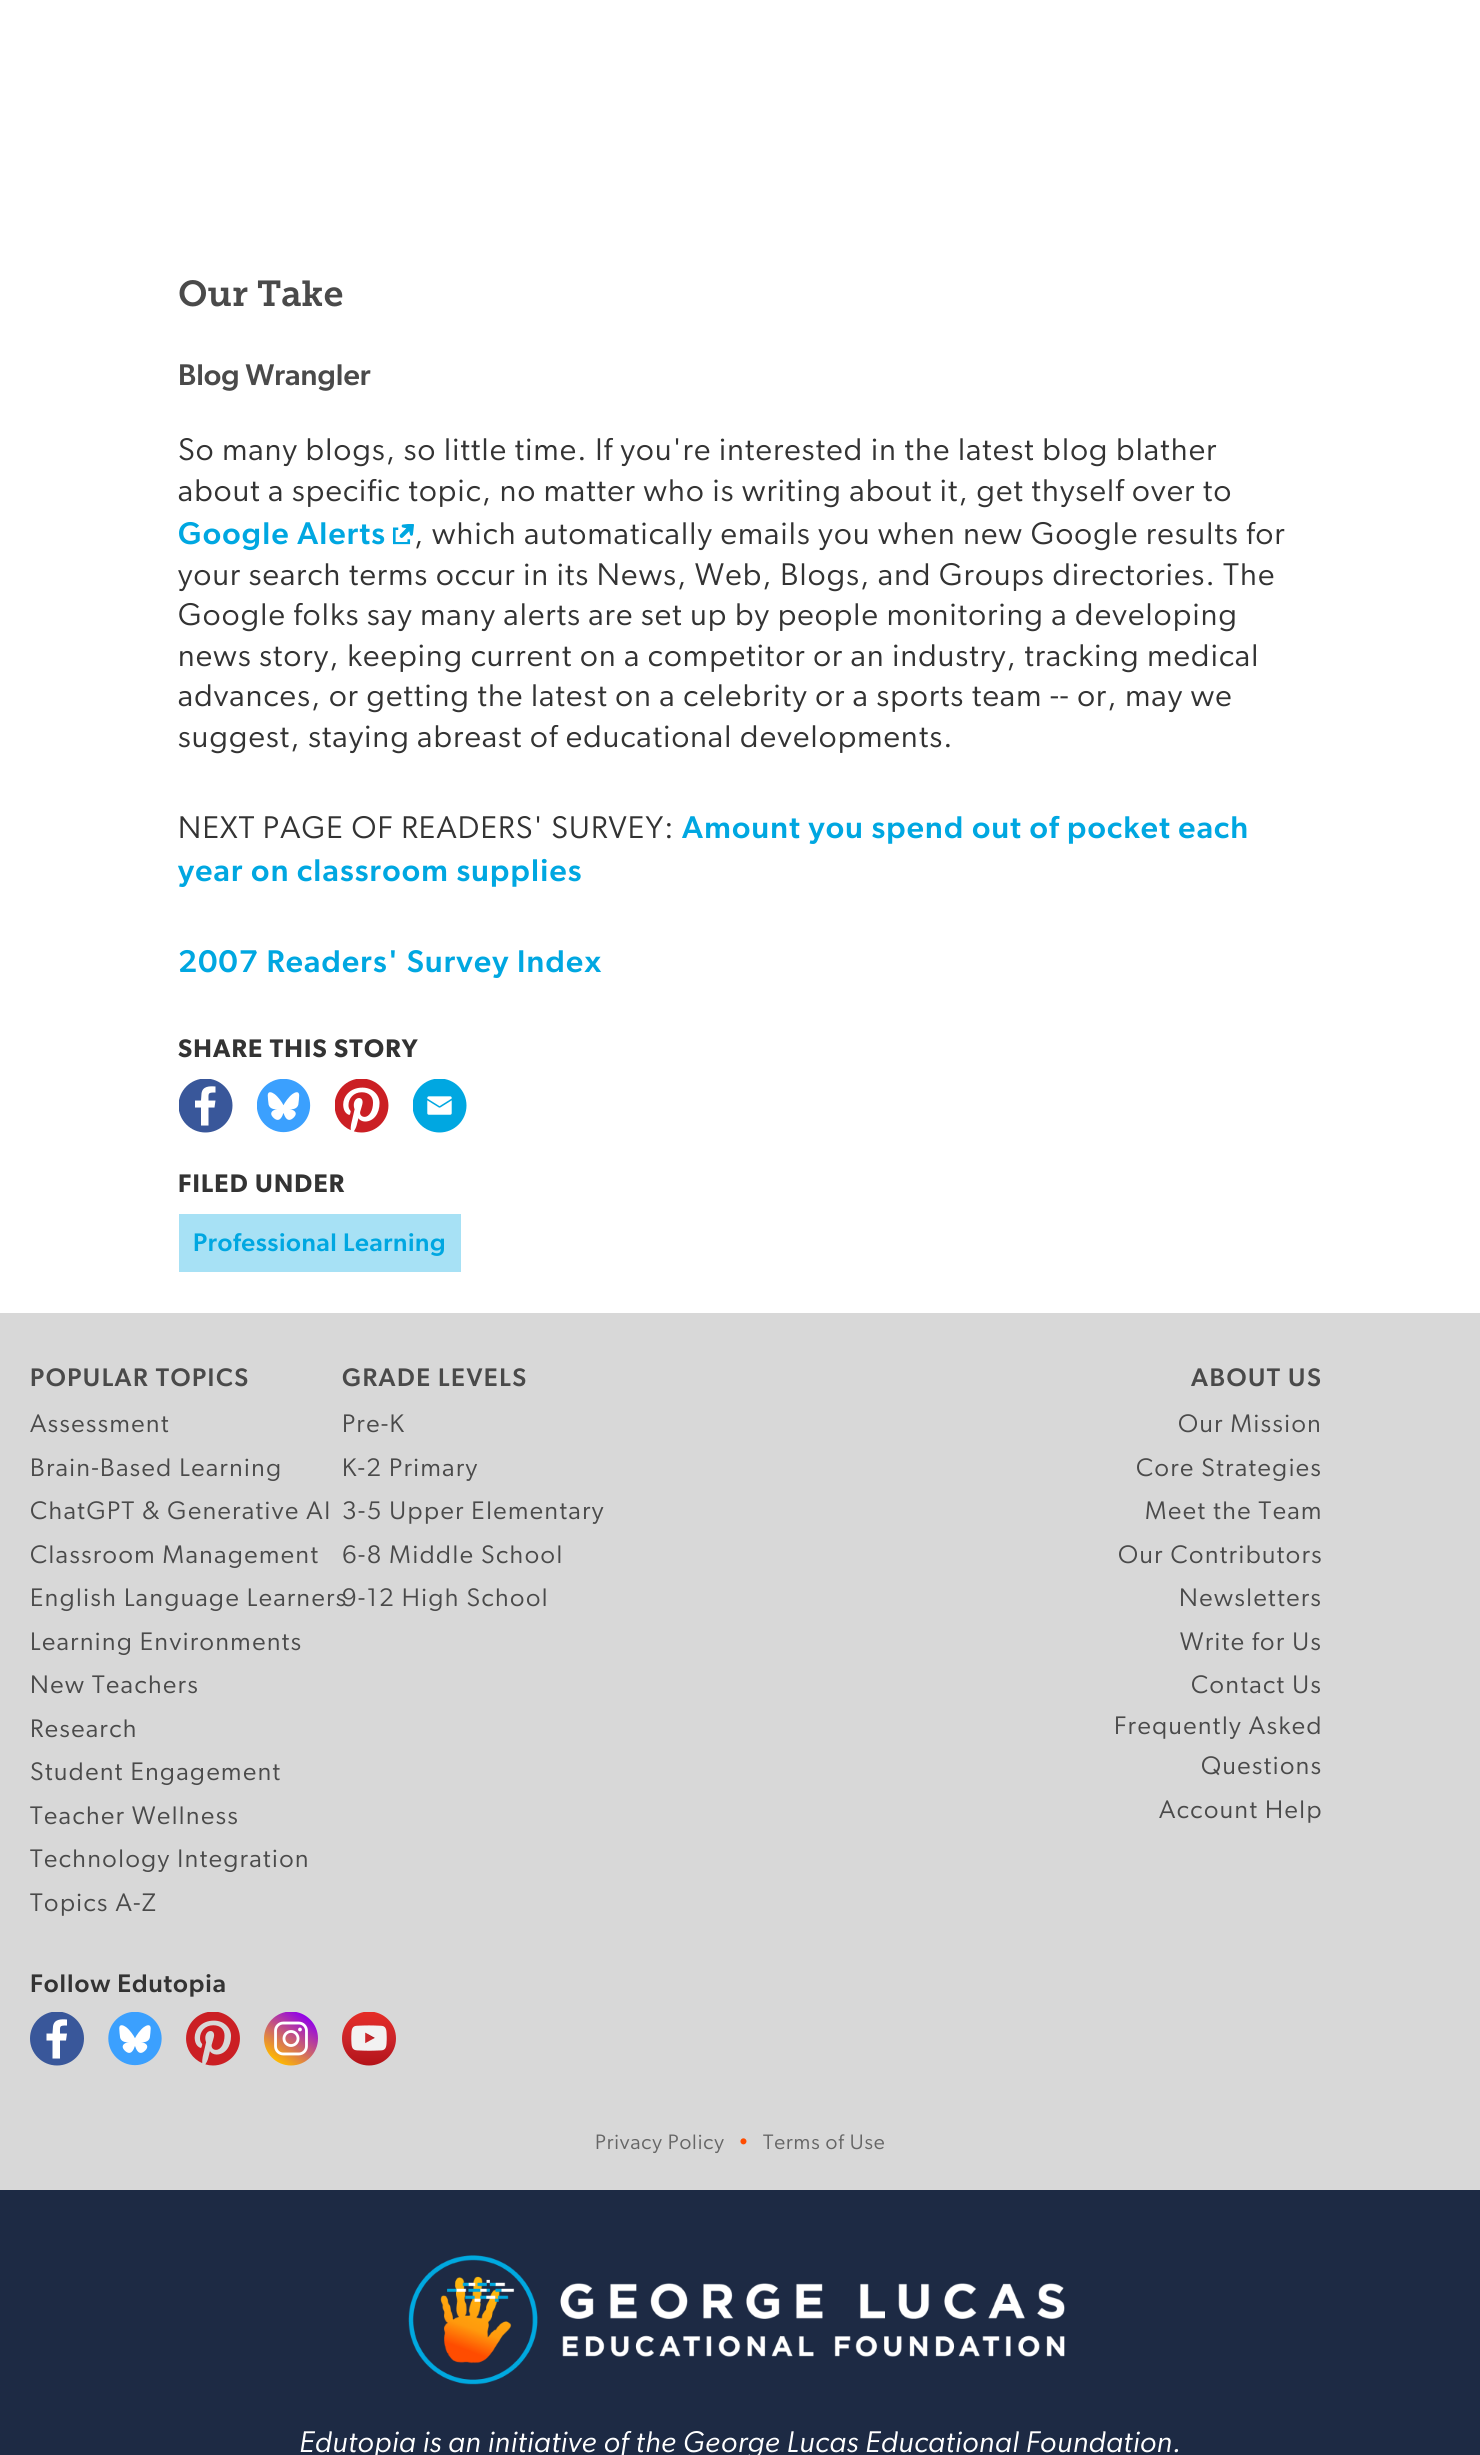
#include <cairo.h>
#include <math.h>
#include <stddef.h>

typedef struct { const char *family; double size; int italic, bold; unsigned color; } style_t;
static cairo_t *ctx;

static void ink(unsigned color) {
    cairo_set_source_rgb(ctx, (color >> 16) / 255.0, (color >> 8 & 255) / 255.0, (color & 255) / 255.0);
}

static void write(double x, double y, const char *s, const style_t *st) {
    cairo_select_font_face(ctx, st->family, st->italic ? CAIRO_FONT_SLANT_ITALIC : CAIRO_FONT_SLANT_NORMAL,
        st->bold ? CAIRO_FONT_WEIGHT_BOLD : CAIRO_FONT_WEIGHT_NORMAL);
    cairo_set_font_size(ctx, st->size);
    ink(st->color);
    cairo_move_to(ctx, x, y);
    cairo_show_text(ctx, s);
}

static void write_spaced(double x, double y, const char *s, double letter, double word) {
    cairo_move_to(ctx, x, y);
    while (*s) {
        char ch[5] = {0};
        int n = 0;
        do ch[n++] = *s++; while ((*s & 0xC0) == 0x80);
        cairo_show_text(ctx, ch);
        cairo_rel_move_to(ctx, letter + word * (*ch == ' '), 0);
    }
}

static void block(double x, double y, double w, double h, unsigned color) {
    ink(color);
    cairo_rectangle(ctx, x, y, w, h);
    cairo_fill(ctx);
}

static void paste(const char *path, double x, double y, double w, double h) {
    cairo_surface_t *image = cairo_image_surface_create_from_png(path);
    cairo_save(ctx);
    cairo_set_source_surface(ctx, image, x, y);
    cairo_rectangle(ctx, x, y, w, h);
    cairo_fill(ctx);
    cairo_restore(ctx);
    cairo_surface_destroy(image);
}

static const style_t s1 = {"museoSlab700", 36, 0, 0, 0x4a4a4a};
static const style_t s2 = {"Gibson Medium", 30, 0, 0, 0x4a4a4a};

int main(void) {
    cairo_surface_t *surface = cairo_image_surface_create(CAIRO_FORMAT_RGB24, 1480, 2455);
    ctx = cairo_create(surface);
    cairo_font_options_t *options = cairo_font_options_create();
    cairo_font_options_set_hint_metrics(options, CAIRO_HINT_METRICS_OFF);
    cairo_font_options_set_hint_style(options, CAIRO_HINT_STYLE_NONE);
    cairo_set_font_options(ctx, options);
    cairo_set_miter_limit(ctx, 4);
    ink(0xffffff);
    cairo_paint(ctx);
    write(178, 306, "Our Take", &s1);
    write(178, 385, "Blog Wrangler", &s2);
    cairo_select_font_face(ctx, "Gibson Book", CAIRO_FONT_SLANT_NORMAL, CAIRO_FONT_WEIGHT_NORMAL);
    cairo_set_font_size(ctx, 31.5);
    ink(0x333333);
    write_spaced(178, 460, "So many blogs, so little time. If you're interested in the latest blog blather", 1.2, 0);
    write_spaced(178, 501, "about a specific topic, no matter who is writing about it, get thyself over to", 1.2, 0);
    cairo_select_font_face(ctx, "Gibson Medium", CAIRO_FONT_SLANT_NORMAL, CAIRO_FONT_WEIGHT_NORMAL);
    ink(0x00a7e1);
    write_spaced(178, 544, "Google Alerts", 1.2, 0);
    paste("pic1.png", 393, 524, 21, 21);
    cairo_select_font_face(ctx, "Gibson Book", CAIRO_FONT_SLANT_NORMAL, CAIRO_FONT_WEIGHT_NORMAL);
    ink(0x333333);
    write_spaced(414, 544, ", which automatically emails you when new Google results for", 1.2, 0);
    write_spaced(178, 585, "your search terms occur in its News, Web, Blogs, and Groups directories. The", 1.2, 0);
    write_spaced(178, 625, "Google folks say many alerts are set up by people monitoring a developing", 1.2, 0);
    write_spaced(178, 666, "news story, keeping current on a competitor or an industry, tracking medical", 1.2, 0);
    write_spaced(178, 706, "advances, or getting the latest on a celebrity or a sports team -- or, may we", 1.2, 0);
    write_spaced(178, 747, "suggest, staying abreast of educational developments.", 1.2, 0);
    write_spaced(178, 838, "NEXT PAGE OF READERS' SURVEY:", 1.2, 0);
    cairo_select_font_face(ctx, "Gibson Medium", CAIRO_FONT_SLANT_NORMAL, CAIRO_FONT_WEIGHT_NORMAL);
    ink(0x00a7e1);
    write_spaced(682, 838, "Amount you spend out of pocket each", 1.2, 0);
    write_spaced(178, 881, "year on classroom supplies", 1.2, 0);
    write_spaced(178, 972, "2007 Readers' Survey Index", 1.2, 0);
    cairo_select_font_face(ctx, "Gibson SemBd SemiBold", CAIRO_FONT_SLANT_NORMAL, CAIRO_FONT_WEIGHT_NORMAL);
    cairo_set_font_size(ctx, 25.5);
    ink(0x333333);
    write_spaced(178, 1057, "SHARE THIS STORY", 1.2, 0);
    cairo_save(ctx);
    cairo_rectangle(ctx, 179, 1079, 54, 54);
    cairo_clip(ctx);
    ink(0x39579a);
    cairo_arc(ctx, 205.5, 1105.5, 27, 0, 2 * M_PI);
    cairo_fill(ctx);
    cairo_restore(ctx);
    ink(0xffffff);
    cairo_new_path(ctx);
    cairo_move_to(ctx, 208.5, 1125.5);
    cairo_line_to(ctx, 208.5, 1107.5);
    cairo_line_to(ctx, 214.5, 1107.5);
    cairo_line_to(ctx, 215.5, 1100.5);
    cairo_line_to(ctx, 208.5, 1100.5);
    cairo_curve_to(ctx, 208.5, 1093, 207.5, 1092.5, 215.5, 1092.5);
    cairo_line_to(ctx, 215.5, 1086.5);
    cairo_curve_to(ctx, 209.5, 1086, 202.5, 1086, 201.5, 1093.5);
    cairo_line_to(ctx, 201, 1100.5);
    cairo_line_to(ctx, 195, 1100.5);
    cairo_line_to(ctx, 195, 1107.5);
    cairo_line_to(ctx, 201, 1107.5);
    cairo_line_to(ctx, 201, 1125.5);
    cairo_close_path(ctx);
    cairo_fill(ctx);
    paste("pic2.png", 257, 1079, 54, 54);
    paste("pic3.png", 335, 1079, 54, 54);
    paste("pic4.png", 413, 1079, 54, 54);
    ink(0x333333);
    write_spaced(178, 1192, "FILED UNDER", 1.2, 0);
    block(179, 1214, 282, 58, 0xa7e1f5);
    cairo_select_font_face(ctx, "Gibson Medium", CAIRO_FONT_SLANT_NORMAL, CAIRO_FONT_WEIGHT_NORMAL);
    ink(0x00a7e1);
    write_spaced(193, 1251, "Professional Learning", 0.6, 0);
    block(0, 1313, 1480, 877, 0xd8d8d8);
    ink(0x4a4a4a);
    write_spaced(30, 1386, "POPULAR TOPICS", 1.5, 0);
    cairo_select_font_face(ctx, "Gibson Book", CAIRO_FONT_SLANT_NORMAL, CAIRO_FONT_WEIGHT_NORMAL);
    write_spaced(30, 1432, "Assessment", 1.5, 0);
    write_spaced(30, 1476, "Brain-Based Learning", 1.5, 0);
    write_spaced(30, 1519, "ChatGPT & Generative AI", 1.5, 0);
    write_spaced(30, 1563, "Classroom Management", 1.5, 0);
    write_spaced(30, 1606, "English Language Learners", 1.5, 0);
    write_spaced(30, 1650, "Learning Environments", 1.5, 0);
    write_spaced(30, 1693, "New Teachers", 1.5, 0);
    write_spaced(30, 1737, "Research", 1.5, 0);
    write_spaced(30, 1780, "Student Engagement", 1.5, 0);
    write_spaced(30, 1824, "Teacher Wellness", 1.5, 0);
    write_spaced(30, 1867, "Technology Integration", 1.5, 0);
    write_spaced(30, 1911, "Topics A-Z", 1.5, 0);
    cairo_select_font_face(ctx, "Gibson Medium", CAIRO_FONT_SLANT_NORMAL, CAIRO_FONT_WEIGHT_NORMAL);
    write_spaced(342, 1386, "GRADE LEVELS", 1.5, 0);
    cairo_select_font_face(ctx, "Gibson Book", CAIRO_FONT_SLANT_NORMAL, CAIRO_FONT_WEIGHT_NORMAL);
    write_spaced(342, 1432, "Pre-K", 1.5, 0);
    write_spaced(342, 1476, "K-2 Primary", 1.5, 0);
    write_spaced(342, 1519, "3-5 Upper Elementary", 1.5, 0);
    write_spaced(342, 1563, "6-8 Middle School", 1.5, 0);
    write_spaced(342, 1606, "9-12 High School", 1.5, 0);
    cairo_select_font_face(ctx, "Gibson Medium", CAIRO_FONT_SLANT_NORMAL, CAIRO_FONT_WEIGHT_NORMAL);
    write_spaced(1191, 1386, "ABOUT US", 1.5, 0);
    cairo_select_font_face(ctx, "Gibson Book", CAIRO_FONT_SLANT_NORMAL, CAIRO_FONT_WEIGHT_NORMAL);
    write_spaced(1178, 1432, "Our Mission", 1.5, 0);
    write_spaced(1136, 1476, "Core Strategies", 1.5, 0);
    write_spaced(1145, 1519, "Meet the Team", 1.5, 0);
    write_spaced(1118, 1563, "Our Contributors", 1.5, 0);
    write_spaced(1179, 1606, "Newsletters", 1.5, 0);
    write_spaced(1180, 1650, "Write for Us", 1.5, 0);
    write_spaced(1191, 1693, "Contact Us", 1.5, 0);
    write_spaced(1114, 1734, "Frequently Asked", 1.5, 0);
    write_spaced(1201, 1774, "Questions", 1.5, 0);
    write_spaced(1159, 1818, "Account Help", 1.5, 0);
    cairo_select_font_face(ctx, "Gibson Medium", CAIRO_FONT_SLANT_NORMAL, CAIRO_FONT_WEIGHT_NORMAL);
    ink(0x333333);
    write_spaced(30, 1992, "Follow Edutopia", 0.9, 0);
    cairo_save(ctx);
    cairo_rectangle(ctx, 30, 2012, 54, 54);
    cairo_clip(ctx);
    ink(0x39579a);
    cairo_arc(ctx, 57, 2038.5, 27, 0, 2 * M_PI);
    cairo_fill(ctx);
    cairo_restore(ctx);
    ink(0xffffff);
    cairo_new_path(ctx);
    cairo_move_to(ctx, 60, 2058.5);
    cairo_line_to(ctx, 60, 2040.5);
    cairo_line_to(ctx, 66, 2040.5);
    cairo_line_to(ctx, 67, 2033.5);
    cairo_line_to(ctx, 60, 2033.5);
    cairo_curve_to(ctx, 60, 2026, 59, 2025.5, 67, 2025.5);
    cairo_line_to(ctx, 67, 2019.5);
    cairo_curve_to(ctx, 61, 2019, 54, 2019, 53, 2026.5);
    cairo_line_to(ctx, 52.5, 2033.5);
    cairo_line_to(ctx, 46.5, 2033.5);
    cairo_line_to(ctx, 46.5, 2040.5);
    cairo_line_to(ctx, 52.5, 2040.5);
    cairo_line_to(ctx, 52.5, 2058.5);
    cairo_close_path(ctx);
    cairo_fill(ctx);
    paste("pic5.png", 108, 2012, 54, 54);
    paste("pic6.png", 186, 2012, 54, 54);
    paste("pic7.png", 264, 2012, 54, 54);
    paste("pic8.png", 342, 2012, 54, 54);
    cairo_select_font_face(ctx, "Gibson Book", CAIRO_FONT_SLANT_NORMAL, CAIRO_FONT_WEIGHT_NORMAL);
    cairo_set_font_size(ctx, 21);
    ink(0x666666);
    write_spaced(595, 2149, "Privacy Policy", 0.9, 0);
    ink(0xff4c00);
    write_spaced(738, 2149, "•", 0.9, 0);
    ink(0x666666);
    write_spaced(763, 2149, "Terms of Use", 0.9, 0);
    block(0, 2190, 1480, 265, 0x1d2a44);
    paste("pic9.png", 408, 2255, 657, 130);
    cairo_select_font_face(ctx, "Gibson", CAIRO_FONT_SLANT_ITALIC, CAIRO_FONT_WEIGHT_NORMAL);
    cairo_set_font_size(ctx, 30);
    ink(0xffffff);
    write_spaced(299, 2452, "Edutopia is an initiative of the George Lucas Educational Foundation.", 0.6, 0);
    cairo_surface_write_to_png(surface, "screenshot.png");
    cairo_font_options_destroy(options);
    cairo_destroy(ctx);
    cairo_surface_destroy(surface);
    return 0;
}
